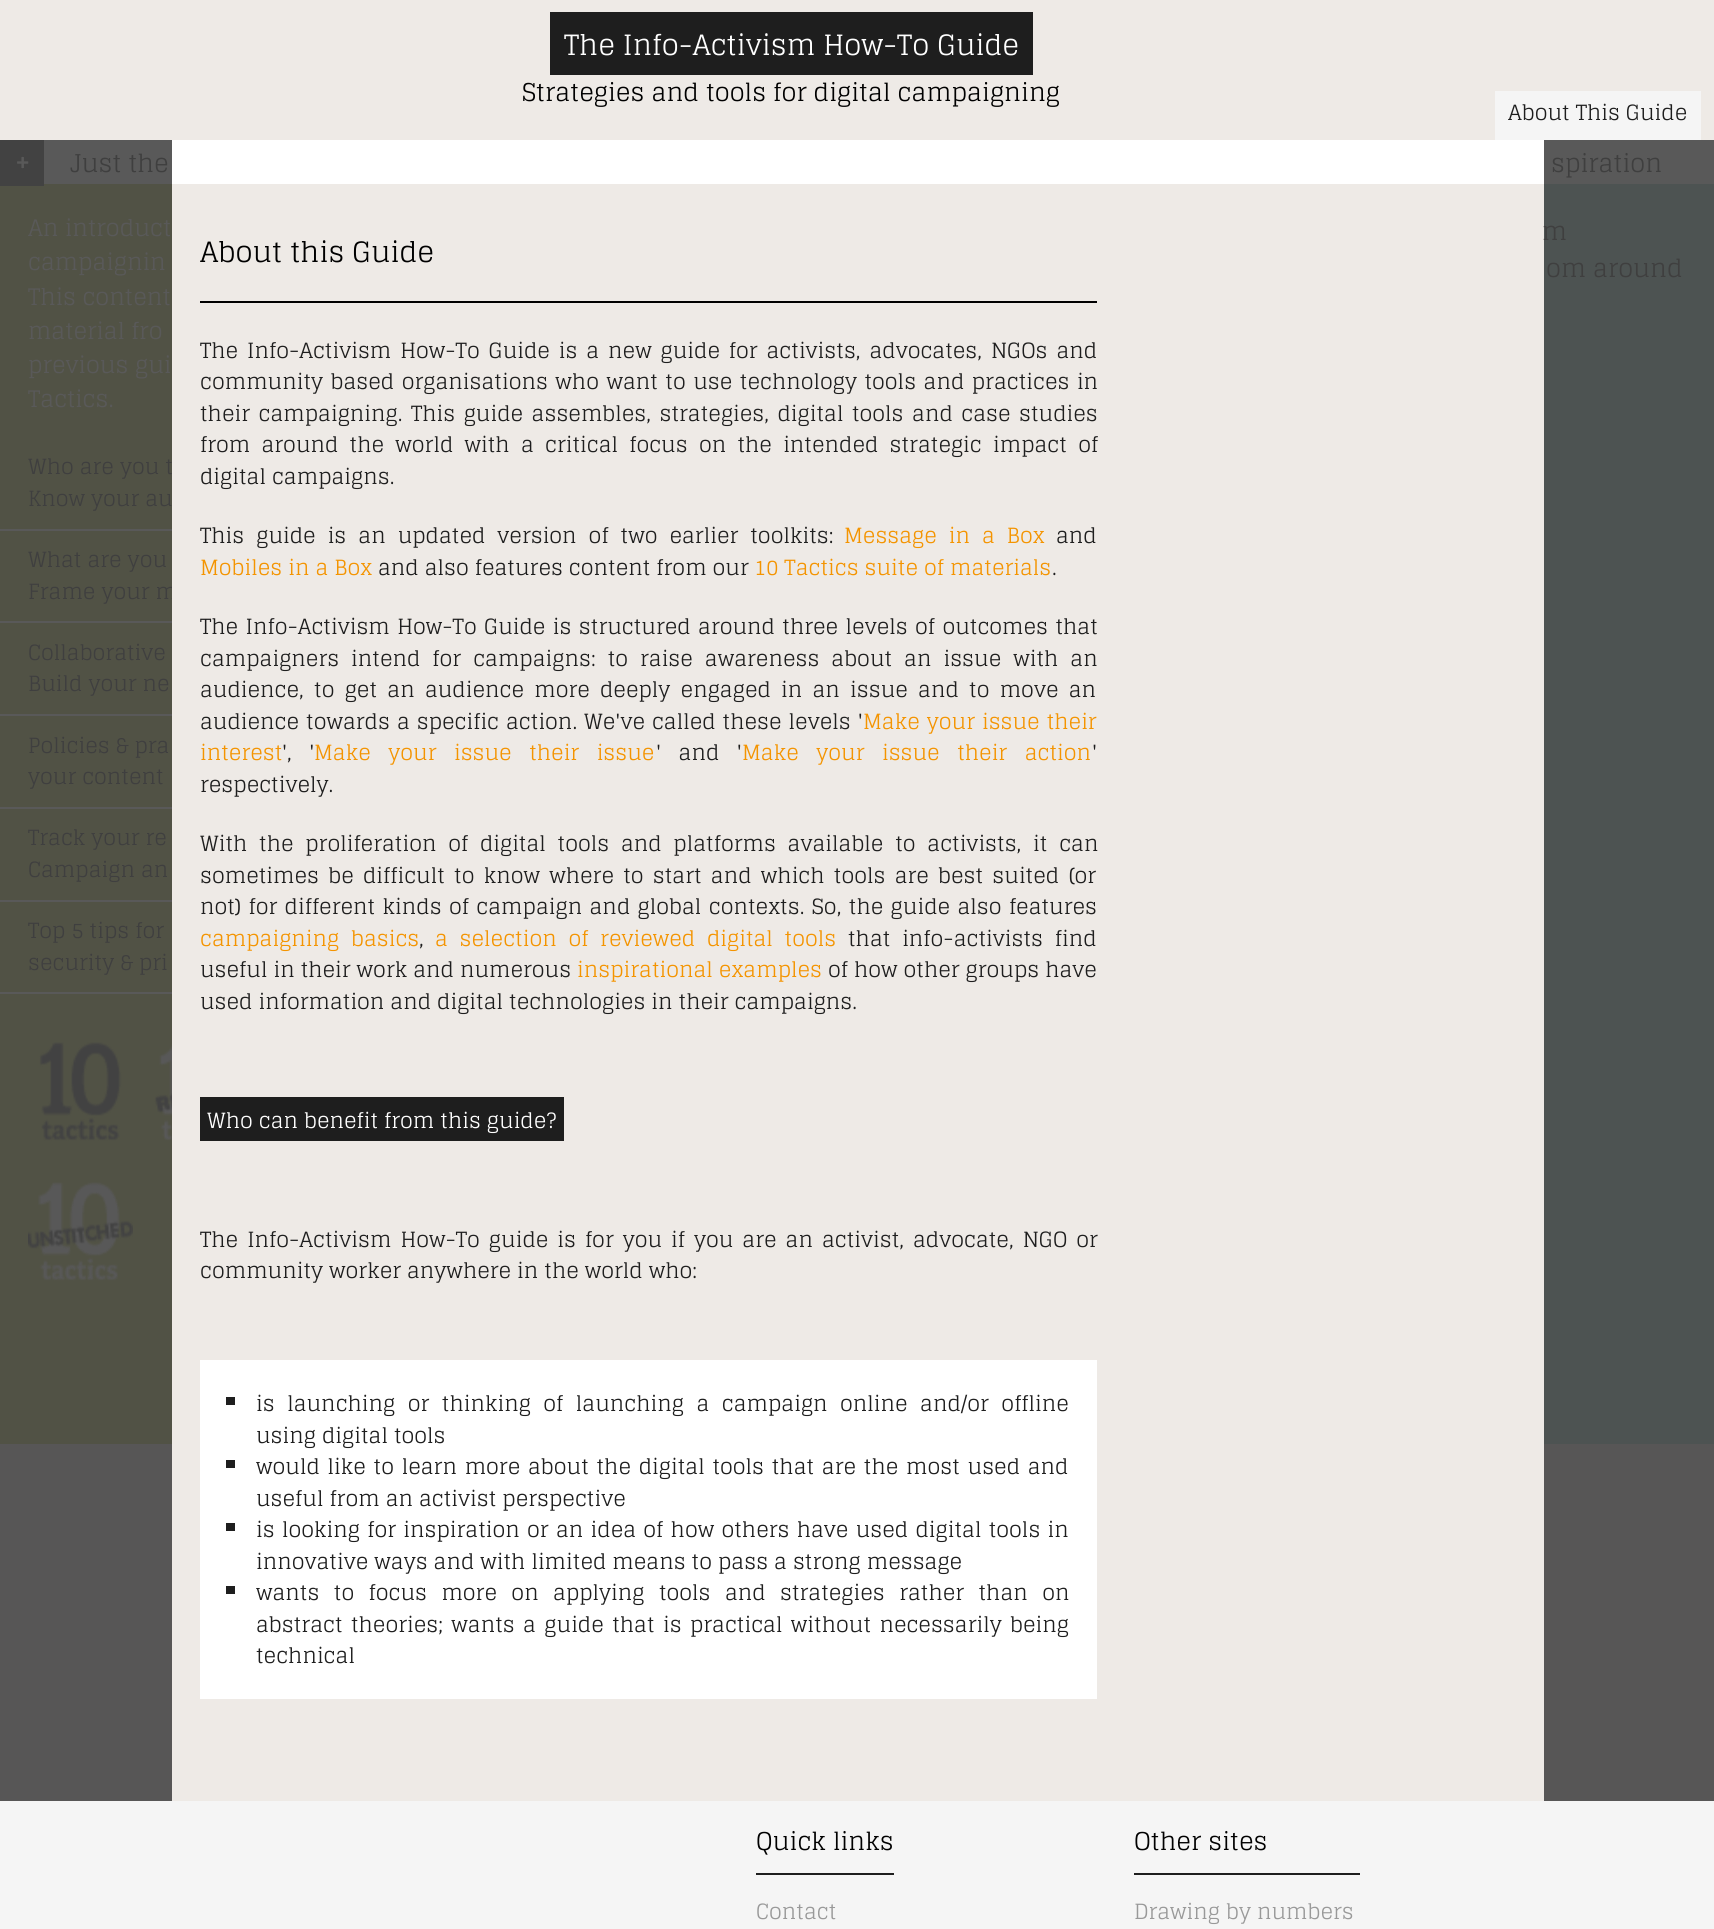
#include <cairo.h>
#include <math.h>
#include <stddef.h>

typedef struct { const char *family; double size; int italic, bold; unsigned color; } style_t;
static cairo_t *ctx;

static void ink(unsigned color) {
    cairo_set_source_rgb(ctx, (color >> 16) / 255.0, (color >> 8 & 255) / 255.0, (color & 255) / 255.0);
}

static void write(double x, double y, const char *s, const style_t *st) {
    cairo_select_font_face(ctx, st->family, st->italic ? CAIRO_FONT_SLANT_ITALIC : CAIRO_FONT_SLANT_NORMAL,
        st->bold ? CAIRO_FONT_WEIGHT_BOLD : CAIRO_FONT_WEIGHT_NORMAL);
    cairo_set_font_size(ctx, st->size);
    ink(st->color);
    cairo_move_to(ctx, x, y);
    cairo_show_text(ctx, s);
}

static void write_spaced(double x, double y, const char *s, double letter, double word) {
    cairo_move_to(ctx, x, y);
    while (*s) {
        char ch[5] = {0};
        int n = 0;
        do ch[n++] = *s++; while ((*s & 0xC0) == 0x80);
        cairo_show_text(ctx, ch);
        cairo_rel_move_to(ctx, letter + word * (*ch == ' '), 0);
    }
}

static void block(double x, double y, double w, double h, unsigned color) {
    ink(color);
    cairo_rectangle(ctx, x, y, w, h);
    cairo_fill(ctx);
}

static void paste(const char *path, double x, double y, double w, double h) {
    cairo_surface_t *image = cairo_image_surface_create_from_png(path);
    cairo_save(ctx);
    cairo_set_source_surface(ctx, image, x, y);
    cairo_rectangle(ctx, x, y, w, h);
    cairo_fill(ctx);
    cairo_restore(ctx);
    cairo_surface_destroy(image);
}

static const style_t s1 = {"Glegoo", 28, 0, 0, 0xffffff};
static const style_t s2 = {"Glegoo", 24.5, 0, 0, 0x000000};
static const style_t s3 = {"Glegoo", 21, 0, 0, 0x1e1e1e};
static const style_t s4 = {"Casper", 22.75, 0, 1, 0x595959};
static const style_t s5 = {"Glegoo", 24.5, 0, 0, 0x3f3f3f};
static const style_t s6 = {"Glegoo", 22.75, 0, 0, 0x595959};
static const style_t s7 = {"Glegoo", 21, 0, 0, 0x3f3f3f};
static const style_t s8 = {"Glegoo", 28, 0, 0, 0x000000};
static const style_t s9 = {"Glegoo", 21, 0, 0, 0xf49400};
static const style_t s10 = {"Glegoo", 21, 0, 0, 0xffffff};
static const style_t s11 = {"Glegoo", 21, 0, 0, 0x999999};

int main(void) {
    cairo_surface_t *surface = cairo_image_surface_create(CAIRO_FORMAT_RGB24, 1714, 1929);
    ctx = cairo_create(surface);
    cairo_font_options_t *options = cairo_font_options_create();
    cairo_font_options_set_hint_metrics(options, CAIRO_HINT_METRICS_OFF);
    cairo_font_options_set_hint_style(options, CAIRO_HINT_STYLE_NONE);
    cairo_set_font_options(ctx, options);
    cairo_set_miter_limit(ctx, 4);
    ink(0xeeeae6);
    cairo_paint(ctx);
    block(0, 1444, 1714, 357, 0x575656);
    block(550, 12, 483, 63, 0x1e1e1e);
    write(564, 55, "The Info-Activism How-To Guide", &s1);
    write(522, 101, "Strategies and tools for digital campaigning", &s2);
    block(1495, 91, 206, 49, 0xf5f5f5);
    write(1508, 120, "About This Guide", &s3);
    block(0, 184, 172, 1260, 0x515245);
    block(0, 140, 44, 46, 0x424242);
    write(17, 170, "+", &s4);
    block(44, 140, 128, 44, 0x595959);
    write(70, 172, "Just the", &s5);
    write(28, 236, "An introduct", &s6);
    write(28, 270, "campaignin", &s6);
    write(28, 305, "This content", &s6);
    write(28, 339, "material fro", &s6);
    write(28, 373, "previous gui", &s6);
    write(28, 407, "Tactics.", &s6);
    block(0, 529, 172, 2, 0x595959);
    write(28, 474, "Who are you t", &s7);
    write(28, 506, "Know your au", &s7);
    block(0, 621, 172, 2, 0x595959);
    write(28, 567, "What are you", &s7);
    write(28, 599, "Frame your m", &s7);
    block(0, 714, 172, 2, 0x595959);
    write(28, 660, "Collaborative", &s7);
    write(28, 691, "Build your ne", &s7);
    block(0, 807, 172, 2, 0x595959);
    write(28, 753, "Policies & pra", &s7);
    write(28, 784, "your content", &s7);
    block(0, 900, 172, 2, 0x595959);
    write(28, 845, "Track your re", &s7);
    write(28, 877, "Campaign an", &s7);
    block(0, 992, 172, 2, 0x595959);
    write(28, 938, "Top 5 tips for", &s7);
    write(28, 970, "security & pri", &s7);
    paste("pic1.png", 39, 1042, 83, 99);
    paste("pic2.png", 154, 1044, 18, 97);
    paste("pic3.png", 28, 1182, 105, 99);
    block(1544, 184, 170, 1260, 0x4d5352);
    block(1544, 140, 170, 44, 0x595959);
    write(1551, 172, "spiration", &s5);
    write(1542, 240, "m", &s5);
    write(1546, 277, "om around", &s5);
    block(172, 140, 1372, 44, 0xffffff);
    block(172, 586, 1372, 1215, 0xeeeae6);
    block(200, 301, 897, 2, 0x000000);
    write(200, 262, "About this Guide", &s8);
    cairo_set_font_size(ctx, 21);
    ink(0x1e1e1e);
    write_spaced(200, 358, "The Info-Activism How-To Guide is a new guide for activists, advocates, NGOs and", 0, 2.9);
    write_spaced(200, 389, "community based organisations who want to use technology tools and practices in", 0, 1.5);
    write_spaced(200, 421, "their campaigning. This guide assembles, strategies, digital tools and case studies", 0, 2.5);
    write_spaced(200, 452, "from around the world with a critical focus on the intended strategic impact of", 0, 5.25);
    write(200, 484, "digital campaigns.", &s3);
    write_spaced(200, 543, "This guide is an updated version of two earlier toolkits:", 0, 6);
    ink(0xf49400);
    write_spaced(844, 543, "Message in a Box", 0, 6);
    write(1056, 543, "and", &s3);
    write(200, 575, "Mobiles in a Box", &s9);
    write(378, 575, "and also features content from our", &s3);
    write(754, 575, "10 Tactics suite of materials", &s9);
    write(1052, 575, ".", &s3);
    write_spaced(200, 634, "The Info-Activism How-To Guide is structured around three levels of outcomes that", 0, 1.4);
    write_spaced(200, 666, "campaigners intend for campaigns: to raise awareness about an issue with an", 0, 6);
    write_spaced(200, 697, "audience, to get an audience more deeply engaged in an issue and to move an", 0, 4.25);
    write_spaced(200, 729, "audience towards a specific action. We've called these levels '", 0, 1);
    ink(0xf49400);
    write_spaced(863, 729, "Make your issue their", 0, 1);
    write(200, 760, "interest", &s9);
    ink(0x1e1e1e);
    write_spaced(282, 760, "', '", 0, 11.5);
    ink(0xf49400);
    write_spaced(314, 760, "Make your issue their issue", 0, 11.5);
    ink(0x1e1e1e);
    write_spaced(656, 760, "' and '", 0, 11.5);
    ink(0xf49400);
    write_spaced(742, 760, "Make your issue their action", 0, 11.5);
    write(1092, 760, "'", &s3);
    write(200, 792, "respectively.", &s3);
    write_spaced(200, 851, "With the proliferation of digital tools and platforms available to activists, it can", 0, 5.75);
    write_spaced(200, 883, "sometimes be difficult to know where to start and which tools are best suited (or", 0, 3.25);
    write_spaced(200, 914, "not) for different kinds of campaign and global contexts. So, the guide also features", 0, 1.4);
    ink(0xf49400);
    write_spaced(200, 946, "campaigning basics", 0, 5.75);
    write(419, 946, ",", &s3);
    ink(0xf49400);
    write_spaced(435, 946, "a selection of reviewed digital tools", 0, 5.75);
    ink(0x1e1e1e);
    write_spaced(848, 946, "that info-activists find", 0, 5.75);
    write(200, 977, "useful in their work and numerous", &s3);
    write(577, 977, "inspirational examples", &s9);
    write(828, 977, "of how other groups have", &s3);
    write(200, 1009, "used information and digital technologies in their campaigns.", &s3);
    block(200, 1097, 364, 44, 0x1e1e1e);
    write(207, 1128, "Who can benefit from this guide?", &s10);
    ink(0x1e1e1e);
    write_spaced(200, 1247, "The Info-Activism How-To guide is for you if you are an activist, advocate, NGO or", 0, 3);
    write(200, 1278, "community worker anywhere in the world who:", &s3);
    block(200, 1360, 897, 339, 0xffffff);
    block(226, 1397, 9, 8, 0x1e1e1e);
    write_spaced(256, 1411, "is launching or thinking of launching a campaign online and/or offline", 0, 6.5);
    write(256, 1443, "using digital tools", &s3);
    block(226, 1460, 9, 8, 0x1e1e1e);
    write_spaced(256, 1474, "would like to learn more about the digital tools that are the most used and", 0, 1.75);
    write(256, 1506, "useful from an activist perspective", &s3);
    block(226, 1523, 9, 8, 0x1e1e1e);
    write_spaced(256, 1537, "is looking for inspiration or an idea of how others have used digital tools in", 0, 1.3);
    write(256, 1569, "innovative ways and with limited means to pass a strong message", &s3);
    block(226, 1586, 9, 8, 0x1e1e1e);
    write_spaced(256, 1600, "wants to focus more on applying tools and strategies rather than on", 0, 8.4);
    write_spaced(256, 1632, "abstract theories; wants a guide that is practical without necessarily being", 0, 2.4);
    write(256, 1663, "technical", &s3);
    block(0, 1801, 1714, 128, 0xf5f5f5);
    block(756, 1873, 138, 2, 0x1e1e1e);
    write(756, 1850, "Quick links", &s2);
    write(756, 1919, "Contact", &s11);
    block(1134, 1873, 226, 2, 0x1e1e1e);
    write(1134, 1850, "Other sites", &s2);
    write(1134, 1919, "Drawing by numbers", &s11);
    cairo_surface_write_to_png(surface, "screenshot.png");
    cairo_font_options_destroy(options);
    cairo_destroy(ctx);
    cairo_surface_destroy(surface);
    return 0;
}
